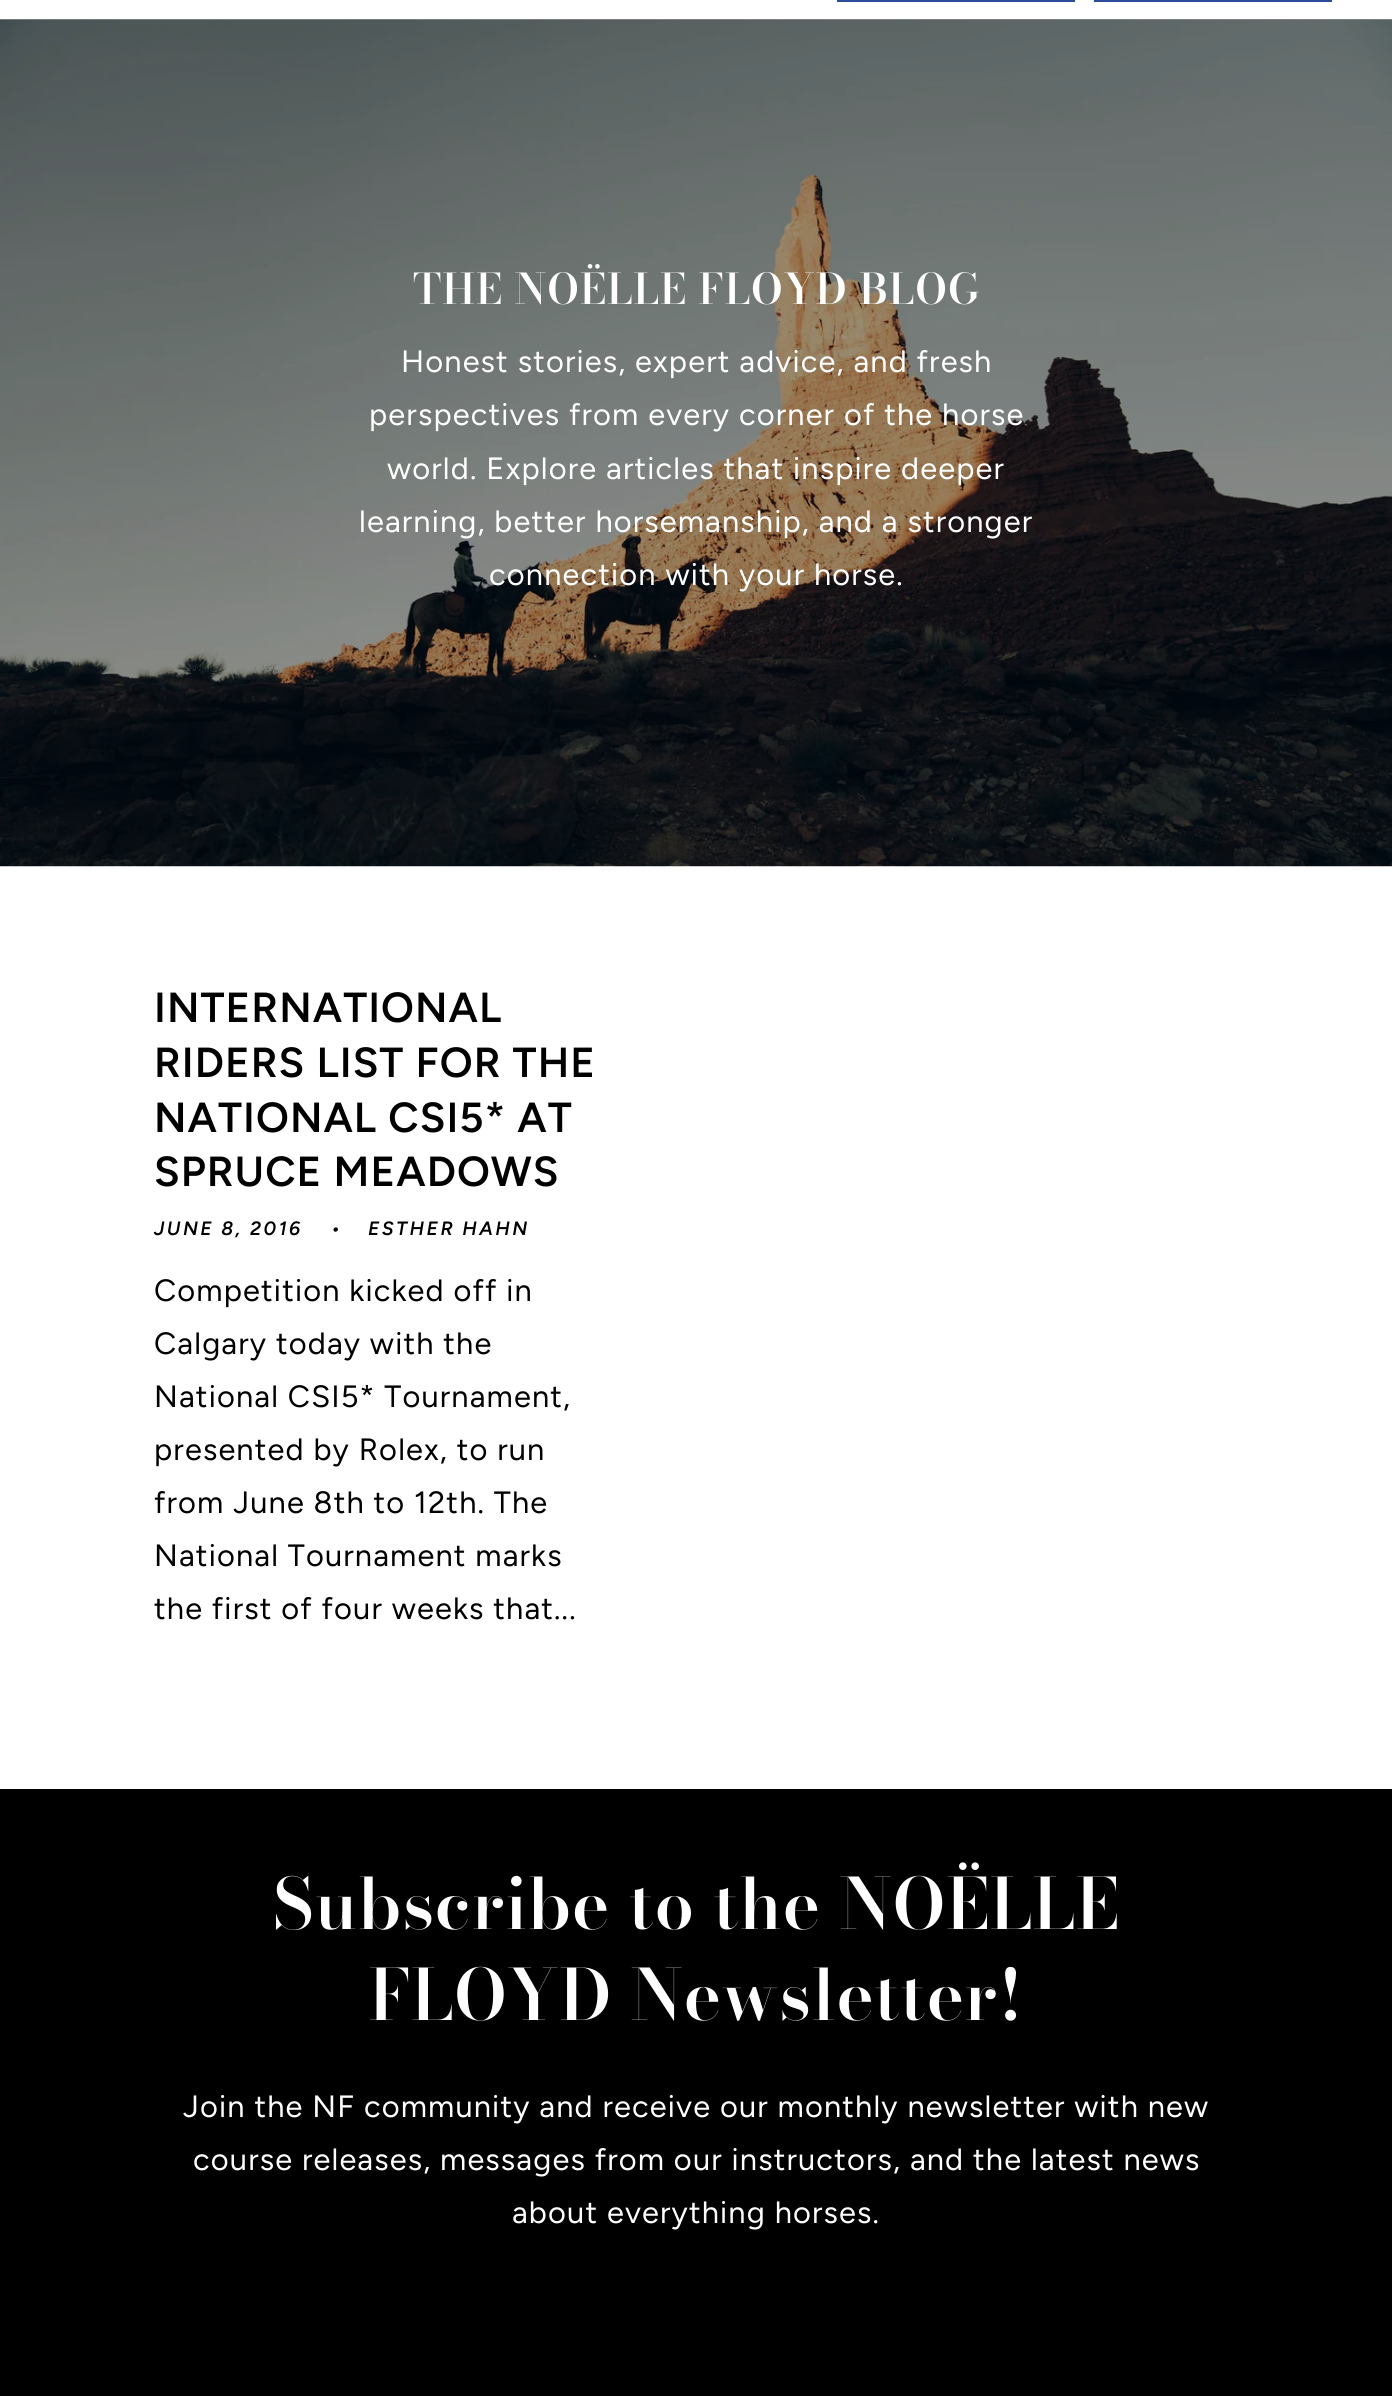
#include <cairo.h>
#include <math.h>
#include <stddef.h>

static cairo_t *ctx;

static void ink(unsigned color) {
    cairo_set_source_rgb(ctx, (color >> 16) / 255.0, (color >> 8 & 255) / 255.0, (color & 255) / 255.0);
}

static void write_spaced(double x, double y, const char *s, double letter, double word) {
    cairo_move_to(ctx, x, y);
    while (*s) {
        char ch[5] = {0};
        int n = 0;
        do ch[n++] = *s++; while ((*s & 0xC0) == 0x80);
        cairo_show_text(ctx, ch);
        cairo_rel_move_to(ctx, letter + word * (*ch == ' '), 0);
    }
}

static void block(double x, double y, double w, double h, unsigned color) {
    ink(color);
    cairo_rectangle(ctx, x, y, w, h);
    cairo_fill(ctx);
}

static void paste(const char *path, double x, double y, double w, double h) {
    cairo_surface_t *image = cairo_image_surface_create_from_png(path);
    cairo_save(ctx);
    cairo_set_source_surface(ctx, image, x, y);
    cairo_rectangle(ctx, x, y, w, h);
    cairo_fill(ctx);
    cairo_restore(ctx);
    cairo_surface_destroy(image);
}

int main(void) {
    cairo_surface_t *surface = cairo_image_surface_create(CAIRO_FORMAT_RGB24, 1392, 2396);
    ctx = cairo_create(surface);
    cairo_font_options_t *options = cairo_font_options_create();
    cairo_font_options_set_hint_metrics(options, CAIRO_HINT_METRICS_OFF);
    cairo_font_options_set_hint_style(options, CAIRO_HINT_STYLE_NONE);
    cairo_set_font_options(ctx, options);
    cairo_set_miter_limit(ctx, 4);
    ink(0xffffff);
    cairo_paint(ctx);
    block(837, 0, 238, 2, 0x2b4c9b);
    cairo_rectangle(ctx, 1096, -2, 234, 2);
    cairo_set_line_width(ctx, 4);
    cairo_stroke(ctx);
    block(0, 19, 1392, 1, 0x8a8a8a);
    paste("pic1.png", 0, 19, 1392, 848);
    cairo_select_font_face(ctx, "Bodoni Moda SemiBold", CAIRO_FONT_SLANT_NORMAL, CAIRO_FONT_WEIGHT_NORMAL);
    cairo_set_font_size(ctx, 42);
    ink(0xffffff);
    write_spaced(413, 304, "THE NOËLLE FLOYD BLOG", 1.05, 0);
    cairo_select_font_face(ctx, "Figtree", CAIRO_FONT_SLANT_NORMAL, CAIRO_FONT_WEIGHT_NORMAL);
    cairo_set_font_size(ctx, 30.8);
    write_spaced(401, 372, "Honest stories, expert advice, and fresh", 1.15, 0);
    write_spaced(369, 425, "perspectives from every corner of the horse", 1.15, 0);
    write_spaced(387, 479, "world. Explore articles that inspire deeper", 1.15, 0);
    write_spaced(359, 532, "learning, better horsemanship, and a stronger", 1.15, 0);
    write_spaced(489, 585, "connection with your horse.", 1.15, 0);
    cairo_select_font_face(ctx, "Figtree SemiBold", CAIRO_FONT_SLANT_NORMAL, CAIRO_FONT_WEIGHT_NORMAL);
    cairo_set_font_size(ctx, 42);
    ink(0x000000);
    write_spaced(154, 1022, "INTERNATIONAL", 1.05, 0);
    write_spaced(154, 1077, "RIDERS LIST FOR THE", 1.05, 0);
    write_spaced(154, 1132, "NATIONAL CSI5* AT", 1.05, 0);
    write_spaced(154, 1186, "SPRUCE MEADOWS", 1.05, 0);
    cairo_select_font_face(ctx, "Figtree SemiBold", CAIRO_FONT_SLANT_ITALIC, CAIRO_FONT_WEIGHT_NORMAL);
    cairo_set_font_size(ctx, 19.25);
    write_spaced(154, 1235, "JUNE 8, 2016", 2.5, 0);
    write_spaced(331, 1235, "•", 2.5, 0);
    write_spaced(368, 1235, "ESTHER HAHN", 2.5, 0);
    cairo_select_font_face(ctx, "Figtree", CAIRO_FONT_SLANT_NORMAL, CAIRO_FONT_WEIGHT_NORMAL);
    cairo_set_font_size(ctx, 30.8);
    write_spaced(154, 1301, "Competition kicked off in", 1.15, 0);
    write_spaced(154, 1354, "Calgary today with the", 1.15, 0);
    write_spaced(154, 1407, "National CSI5* Tournament,", 1.15, 0);
    write_spaced(154, 1460, "presented by Rolex, to run", 1.15, 0);
    write_spaced(154, 1513, "from June 8th to 12th. The", 1.15, 0);
    write_spaced(154, 1566, "National Tournament marks", 1.15, 0);
    write_spaced(154, 1619, "the first of four weeks that...", 1.15, 0);
    block(0, 1789, 1392, 607, 0x000000);
    cairo_select_font_face(ctx, "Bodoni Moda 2 SemiBold", CAIRO_FONT_SLANT_NORMAL, CAIRO_FONT_WEIGHT_NORMAL);
    cairo_set_font_size(ctx, 70);
    ink(0xffffff);
    write_spaced(273, 1929, "Subscribe to the NOËLLE", 1.05, 0);
    write_spaced(369, 2020, "FLOYD Newsletter!", 1.05, 0);
    cairo_select_font_face(ctx, "Figtree", CAIRO_FONT_SLANT_NORMAL, CAIRO_FONT_WEIGHT_NORMAL);
    cairo_set_font_size(ctx, 30.8);
    write_spaced(183, 2117, "Join the NF community and receive our monthly newsletter with new", 1.15, 0);
    write_spaced(193, 2170, "course releases, messages from our instructors, and the latest news", 1.15, 0);
    write_spaced(512, 2223, "about everything horses.", 1.15, 0);
    cairo_surface_write_to_png(surface, "screenshot.png");
    cairo_font_options_destroy(options);
    cairo_destroy(ctx);
    cairo_surface_destroy(surface);
    return 0;
}
